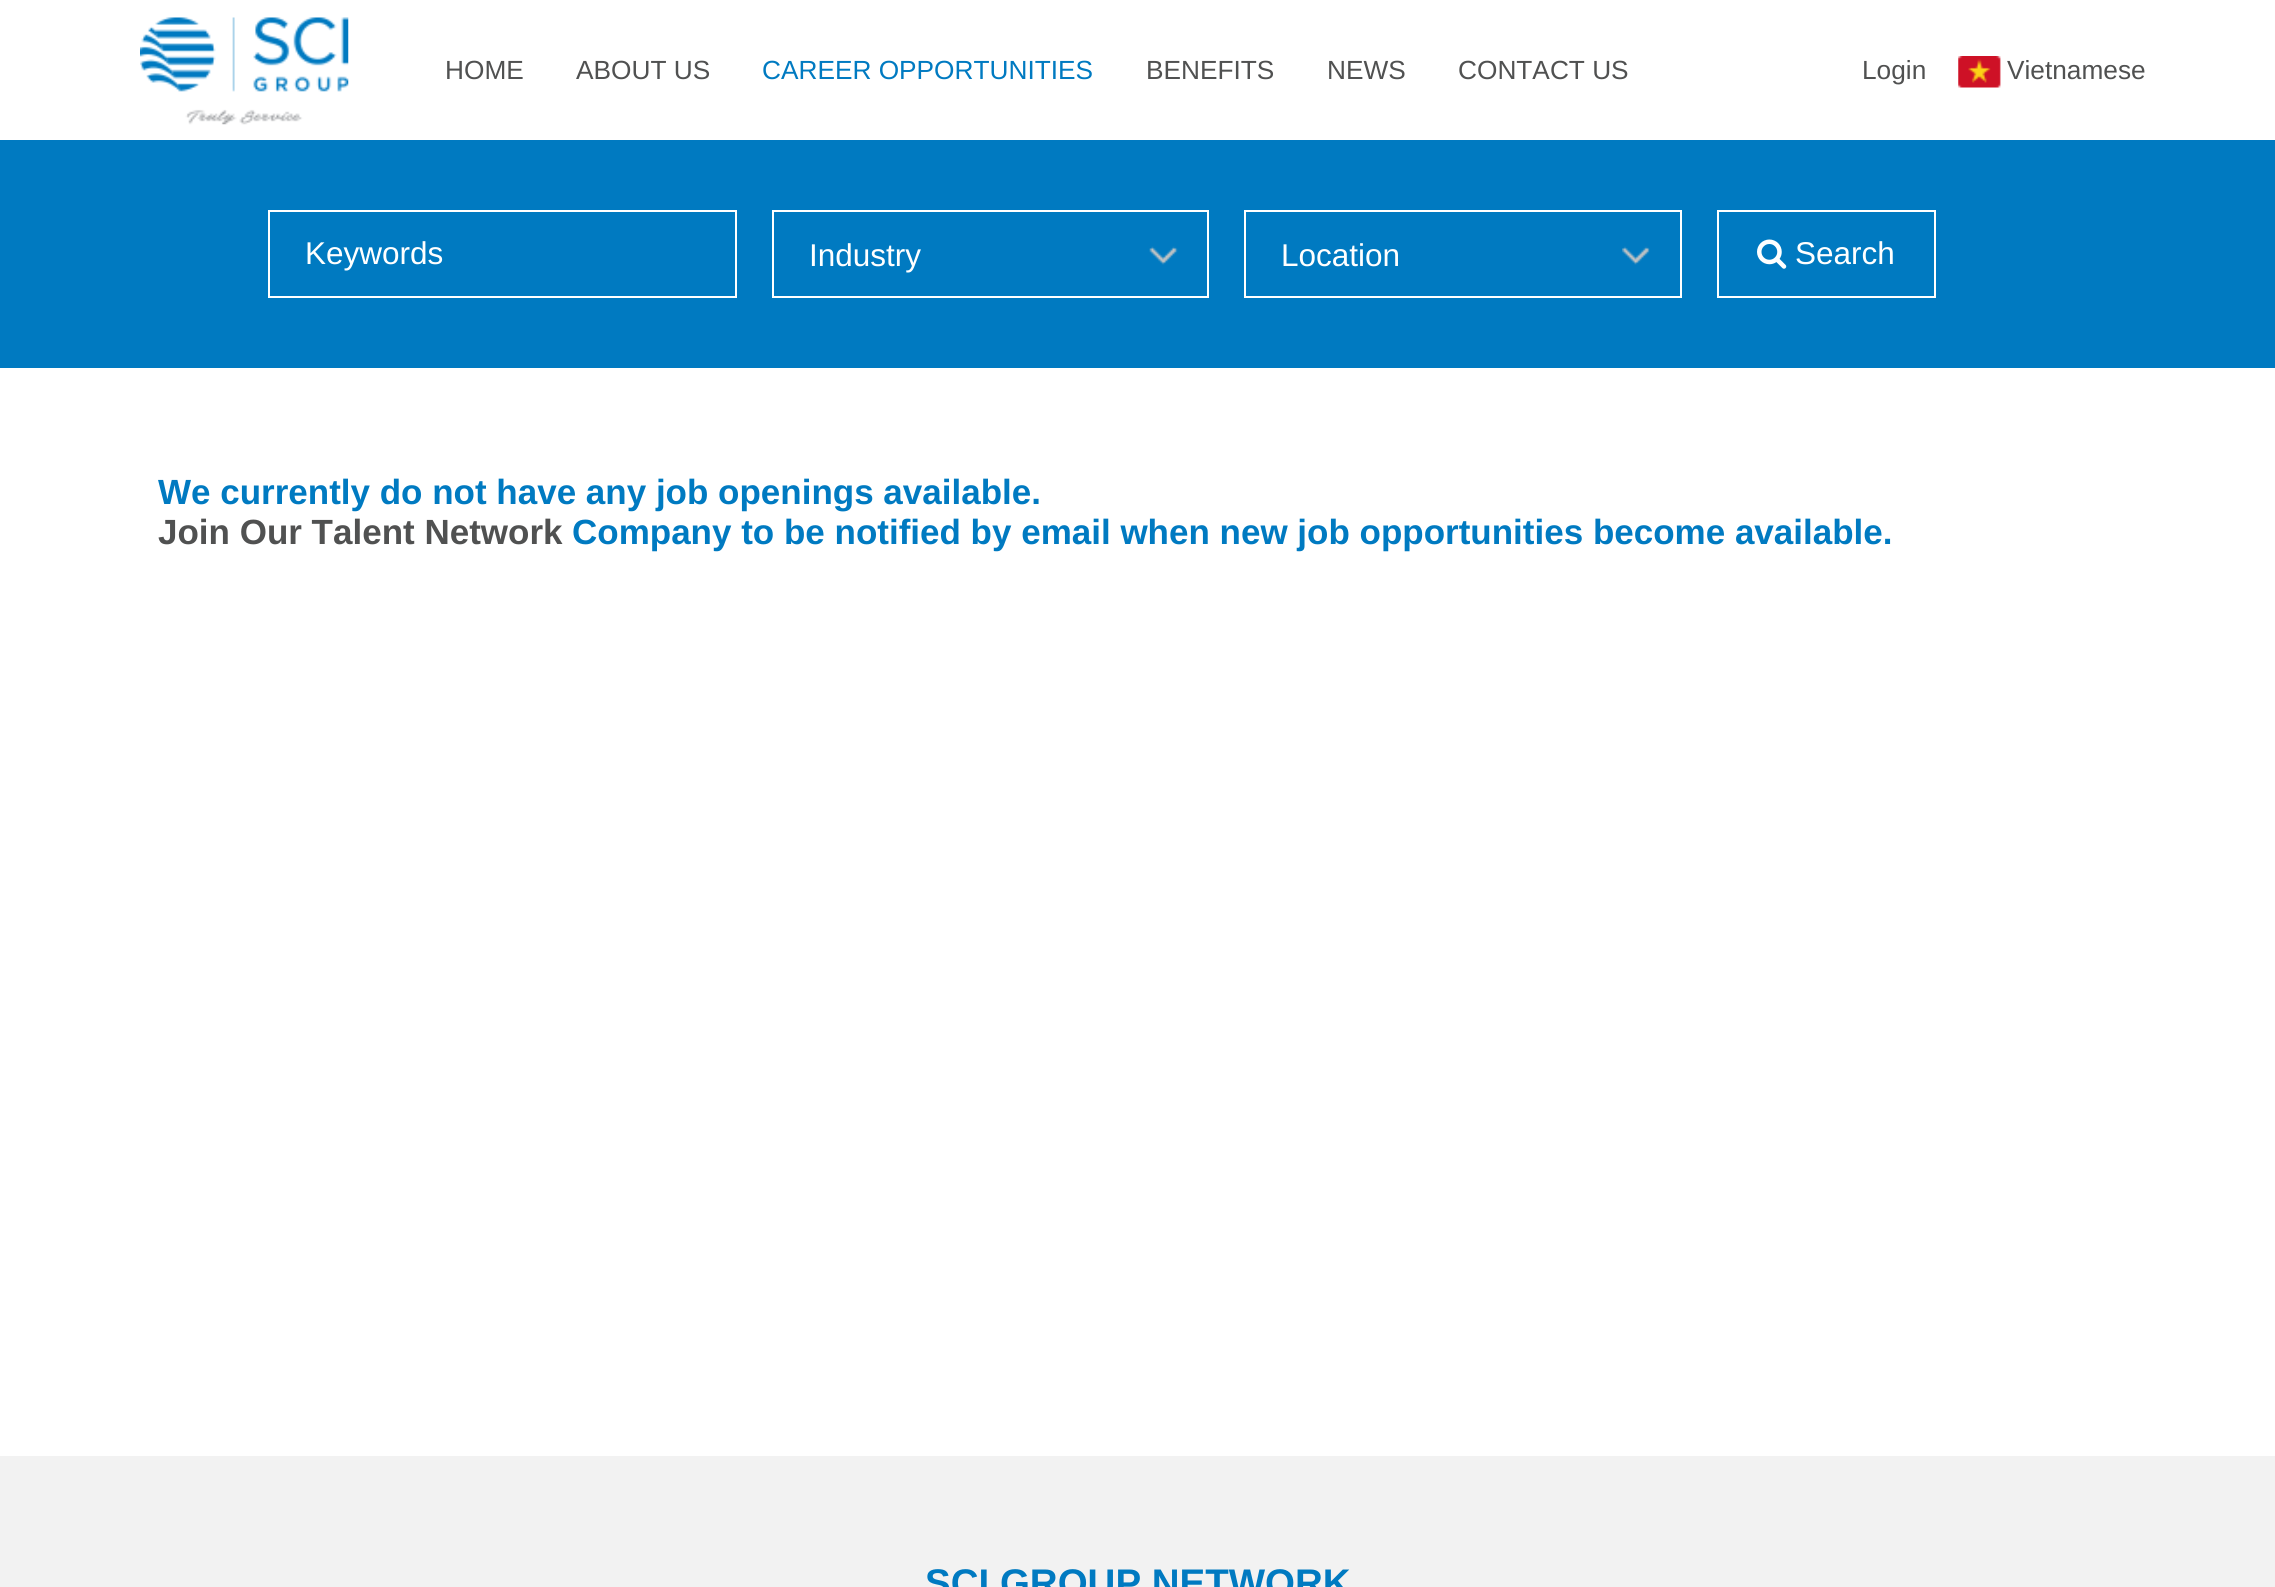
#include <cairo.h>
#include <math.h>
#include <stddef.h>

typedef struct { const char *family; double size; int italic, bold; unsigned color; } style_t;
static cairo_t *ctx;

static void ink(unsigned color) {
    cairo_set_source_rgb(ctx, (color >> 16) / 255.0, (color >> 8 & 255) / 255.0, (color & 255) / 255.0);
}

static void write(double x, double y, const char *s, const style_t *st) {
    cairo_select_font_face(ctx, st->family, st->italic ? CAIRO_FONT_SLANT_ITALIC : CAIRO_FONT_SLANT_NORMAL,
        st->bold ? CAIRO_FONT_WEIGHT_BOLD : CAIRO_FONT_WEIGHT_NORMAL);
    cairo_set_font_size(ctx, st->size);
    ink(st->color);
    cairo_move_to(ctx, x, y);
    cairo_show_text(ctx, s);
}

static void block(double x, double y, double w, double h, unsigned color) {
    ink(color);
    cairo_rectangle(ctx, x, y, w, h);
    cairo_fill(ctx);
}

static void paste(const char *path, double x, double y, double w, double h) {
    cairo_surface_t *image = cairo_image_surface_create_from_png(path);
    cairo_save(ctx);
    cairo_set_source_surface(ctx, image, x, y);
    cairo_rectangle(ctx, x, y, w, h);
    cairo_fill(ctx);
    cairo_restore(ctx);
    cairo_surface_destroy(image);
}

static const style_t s1 = {"Liberation Sans", 26.25, 0, 0, 0x505151};
static const style_t s2 = {"Liberation Sans", 26.25, 0, 0, 0x007ac1};
static const style_t s3 = {"Liberation Sans", 31.5, 0, 0, 0xffffff};
static const style_t s4 = {"Liberation Sans", 35, 0, 1, 0x007ac1};
static const style_t s5 = {"Liberation Sans", 35, 0, 1, 0x505151};
static const style_t s6 = {"Liberation Sans", 38.5, 0, 1, 0x007ac1};

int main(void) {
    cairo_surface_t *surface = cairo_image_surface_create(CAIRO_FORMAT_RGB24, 2275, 1587);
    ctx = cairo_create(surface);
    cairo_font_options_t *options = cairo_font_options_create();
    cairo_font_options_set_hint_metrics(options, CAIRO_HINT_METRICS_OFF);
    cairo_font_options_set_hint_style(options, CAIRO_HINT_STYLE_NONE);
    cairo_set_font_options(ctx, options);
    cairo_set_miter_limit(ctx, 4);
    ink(0xffffff);
    cairo_paint(ctx);
    paste("pic1.png", 140, 17, 209, 108);
    write(445, 79, "HOME", &s1);
    write(576, 79, "ABOUT US", &s1);
    write(762, 79, "CAREER OPPORTUNITIES", &s2);
    write(1146, 79, "BENEFITS", &s1);
    write(1327, 79, "NEWS", &s1);
    write(1458, 79, "CONTACT US", &s1);
    write(1862, 79, "Login", &s1);
    paste("pic2.png", 1958, 56, 43, 32);
    write(2007, 79, "Vietnamese", &s1);
    block(0, 140, 2275, 228, 0x007ac1);
    cairo_rectangle(ctx, 269, 211, 467, 86);
    ink(0xffffff);
    cairo_stroke(ctx);
    write(305, 264, "Keywords", &s3);
    cairo_rectangle(ctx, 773, 211, 435, 86);
    cairo_stroke(ctx);
    write(809, 266, "Industry", &s3);
    paste("pic3.png", 1149, 246, 29, 19);
    cairo_rectangle(ctx, 1245, 211, 436, 86);
    cairo_stroke(ctx);
    write(1281, 266, "Location", &s3);
    paste("pic4.png", 1622, 246, 28, 19);
    cairo_rectangle(ctx, 1718, 211, 217, 86);
    cairo_stroke(ctx);
    paste("pic5.png", 1757, 239, 30, 30);
    write(1795, 264, "Search", &s3);
    write(158, 504, "We currently do not have any job openings available.", &s4);
    write(158, 544, "Join Our Talent Network", &s5);
    write(572, 544, "Company to be notified by email when new job opportunities become available.", &s4);
    block(0, 1456, 2275, 131, 0xf2f2f2);
    write(925, 1596, "SCI GROUP NETWORK", &s6);
    cairo_surface_write_to_png(surface, "screenshot.png");
    cairo_font_options_destroy(options);
    cairo_destroy(ctx);
    cairo_surface_destroy(surface);
    return 0;
}
